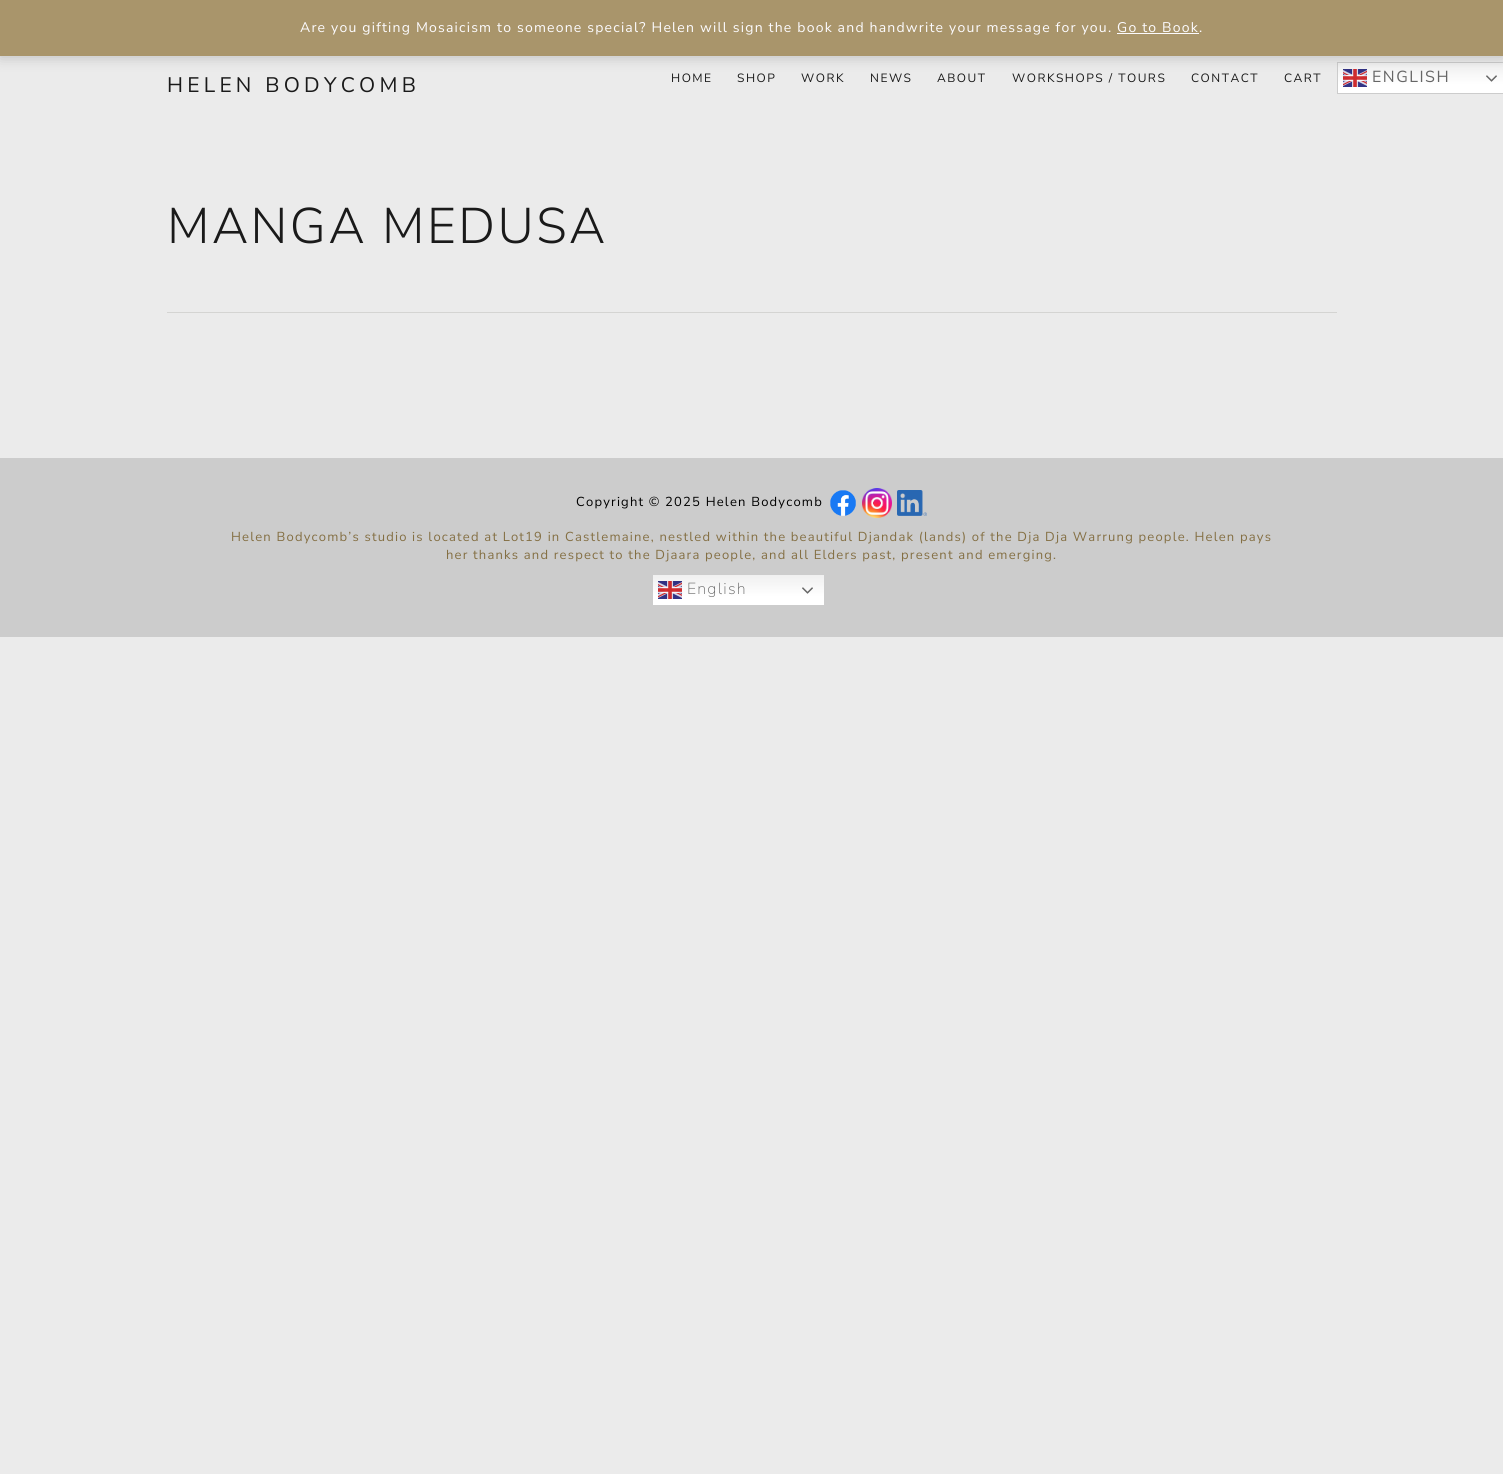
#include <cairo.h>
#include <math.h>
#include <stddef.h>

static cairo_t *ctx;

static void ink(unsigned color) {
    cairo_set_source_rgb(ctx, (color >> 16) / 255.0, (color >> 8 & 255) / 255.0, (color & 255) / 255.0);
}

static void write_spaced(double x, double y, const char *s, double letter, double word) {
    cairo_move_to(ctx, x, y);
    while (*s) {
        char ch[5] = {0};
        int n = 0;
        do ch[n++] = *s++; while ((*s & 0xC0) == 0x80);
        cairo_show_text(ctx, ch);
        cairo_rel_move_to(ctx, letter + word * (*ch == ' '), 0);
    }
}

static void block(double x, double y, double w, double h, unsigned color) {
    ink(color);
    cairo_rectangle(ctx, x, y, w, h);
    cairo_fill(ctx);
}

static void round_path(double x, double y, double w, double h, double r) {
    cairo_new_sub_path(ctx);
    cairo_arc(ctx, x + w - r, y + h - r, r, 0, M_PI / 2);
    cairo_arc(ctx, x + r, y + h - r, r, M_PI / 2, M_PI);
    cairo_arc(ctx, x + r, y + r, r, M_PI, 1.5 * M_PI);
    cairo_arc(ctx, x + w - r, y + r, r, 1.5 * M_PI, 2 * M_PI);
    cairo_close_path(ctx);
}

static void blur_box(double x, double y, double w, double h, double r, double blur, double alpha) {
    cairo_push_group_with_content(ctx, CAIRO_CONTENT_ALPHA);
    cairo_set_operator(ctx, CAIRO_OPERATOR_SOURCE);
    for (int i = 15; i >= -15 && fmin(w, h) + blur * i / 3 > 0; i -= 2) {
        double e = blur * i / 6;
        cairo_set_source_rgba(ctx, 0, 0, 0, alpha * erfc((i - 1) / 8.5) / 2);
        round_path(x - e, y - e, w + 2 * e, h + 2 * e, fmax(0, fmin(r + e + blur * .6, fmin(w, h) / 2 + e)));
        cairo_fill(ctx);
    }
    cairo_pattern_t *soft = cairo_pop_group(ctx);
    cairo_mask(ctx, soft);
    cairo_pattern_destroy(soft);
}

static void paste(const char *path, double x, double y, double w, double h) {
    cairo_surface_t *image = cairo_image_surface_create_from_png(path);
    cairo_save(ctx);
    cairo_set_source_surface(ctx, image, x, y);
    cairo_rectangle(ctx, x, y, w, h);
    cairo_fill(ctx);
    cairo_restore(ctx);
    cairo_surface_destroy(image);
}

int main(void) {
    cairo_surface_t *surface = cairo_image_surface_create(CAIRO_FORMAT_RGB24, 1503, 1474);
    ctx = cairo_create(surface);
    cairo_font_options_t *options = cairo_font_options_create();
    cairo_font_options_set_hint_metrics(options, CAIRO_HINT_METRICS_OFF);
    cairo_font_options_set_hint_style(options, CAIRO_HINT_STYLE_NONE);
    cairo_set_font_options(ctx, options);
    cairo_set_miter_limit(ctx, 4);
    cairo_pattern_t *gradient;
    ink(0xebebeb);
    cairo_paint(ctx);
    gradient = cairo_pattern_create_linear(1424, 62, 1424, 94);
    cairo_pattern_add_color_stop_rgba(gradient, 0, 0.937, 0.937, 0.937, 1);
    cairo_pattern_add_color_stop_rgba(gradient, 0.7, 1, 1, 1, 1);
    cairo_set_source(ctx, gradient);
    cairo_pattern_destroy(gradient);
    cairo_rectangle(ctx, 1338, 63, 165, 30);
    cairo_fill(ctx);
    cairo_rectangle(ctx, 1337.5, 62.5, 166, 31);
    ink(0xcccccc);
    cairo_set_line_width(ctx, 1);
    cairo_stroke(ctx);
    paste("pic1.png", 1343, 69, 24, 18);
    paste("pic2.png", 1486, 75, 11, 7);
    ink(0x000000);
    blur_box(0, 1, 1503, 56, 0, 7, 0.2);
    block(0, 0, 1503, 56, 0xa9956b);
    cairo_select_font_face(ctx, "Nunito Sans", CAIRO_FONT_SLANT_NORMAL, CAIRO_FONT_WEIGHT_NORMAL);
    cairo_set_font_size(ctx, 14);
    ink(0xfcfbfe);
    write_spaced(300, 32, "Are you gifting Mosaicism to someone special? Helen will sign the book and handwrite your message for you. Go to Book.", 1.2, 0);
    block(1117, 33, 82, 1, 0xfcfbfe);
    cairo_set_font_size(ctx, 21);
    ink(0x1a1a1a);
    write_spaced(167, 92, "HELEN BODYCOMB", 4.25, 0);
    cairo_set_font_size(ctx, 12);
    write_spaced(671, 82, "HOME", 1.5, 0);
    write_spaced(737, 82, "SHOP", 1.5, 0);
    write_spaced(801, 82, "WORK", 1.5, 0);
    write_spaced(870, 82, "NEWS", 1.5, 0);
    write_spaced(937, 82, "ABOUT", 1.5, 0);
    write_spaced(1012, 82, "WORKSHOPS / TOURS", 1.5, 0);
    write_spaced(1191, 82, "CONTACT", 1.5, 0);
    write_spaced(1284, 82, "CART", 1.5, 0);
    cairo_set_font_size(ctx, 16);
    ink(0x666666);
    write_spaced(1372, 82, "ENGLISH", 1.5, 0);
    cairo_select_font_face(ctx, "Nunito Sans Light", CAIRO_FONT_SLANT_NORMAL, CAIRO_FONT_WEIGHT_NORMAL);
    cairo_set_font_size(ctx, 50);
    ink(0x1a1a1a);
    write_spaced(167, 243, "MANGA MEDUSA", 2.5, 0);
    block(167, 312, 1170, 1, 0xd4d4d2);
    block(0, 458, 1503, 179, 0xcccccc);
    cairo_select_font_face(ctx, "Nunito Sans", CAIRO_FONT_SLANT_NORMAL, CAIRO_FONT_WEIGHT_NORMAL);
    cairo_set_font_size(ctx, 13);
    ink(0x000000);
    write_spaced(576, 506, "Copyright © 2025 Helen Bodycomb", 1.2, 0);
    paste("pic3.png", 830, 490, 26, 26);
    paste("pic4.png", 862, 488, 30, 30);
    paste("pic5.png", 897, 490, 30, 26);
    ink(0x846f43);
    write_spaced(231, 541, "Helen Bodycomb’s studio is located at Lot19 in Castlemaine, nestled within the beautiful Djandak (lands) of the Dja Dja Warrung people. Helen pays", 1.2, 0);
    write_spaced(446, 559, "her thanks and respect to the Djaara people, and all Elders past, present and emerging.", 1.2, 0);
    gradient = cairo_pattern_create_linear(739, 574, 739, 606);
    cairo_pattern_add_color_stop_rgba(gradient, 0, 0.937, 0.937, 0.937, 1);
    cairo_pattern_add_color_stop_rgba(gradient, 0.7, 1, 1, 1, 1);
    cairo_set_source(ctx, gradient);
    cairo_pattern_destroy(gradient);
    cairo_rectangle(ctx, 653, 575, 171, 30);
    cairo_fill(ctx);
    paste("pic1.png", 658, 581, 24, 18);
    cairo_select_font_face(ctx, "Nunito Sans ExtraLight", CAIRO_FONT_SLANT_NORMAL, CAIRO_FONT_WEIGHT_NORMAL);
    cairo_set_font_size(ctx, 16);
    ink(0x666666);
    write_spaced(687, 594, "English", 1.2, 0);
    paste("pic2.png", 802, 587, 11, 7);
    cairo_surface_write_to_png(surface, "screenshot.png");
    cairo_font_options_destroy(options);
    cairo_destroy(ctx);
    cairo_surface_destroy(surface);
    return 0;
}
